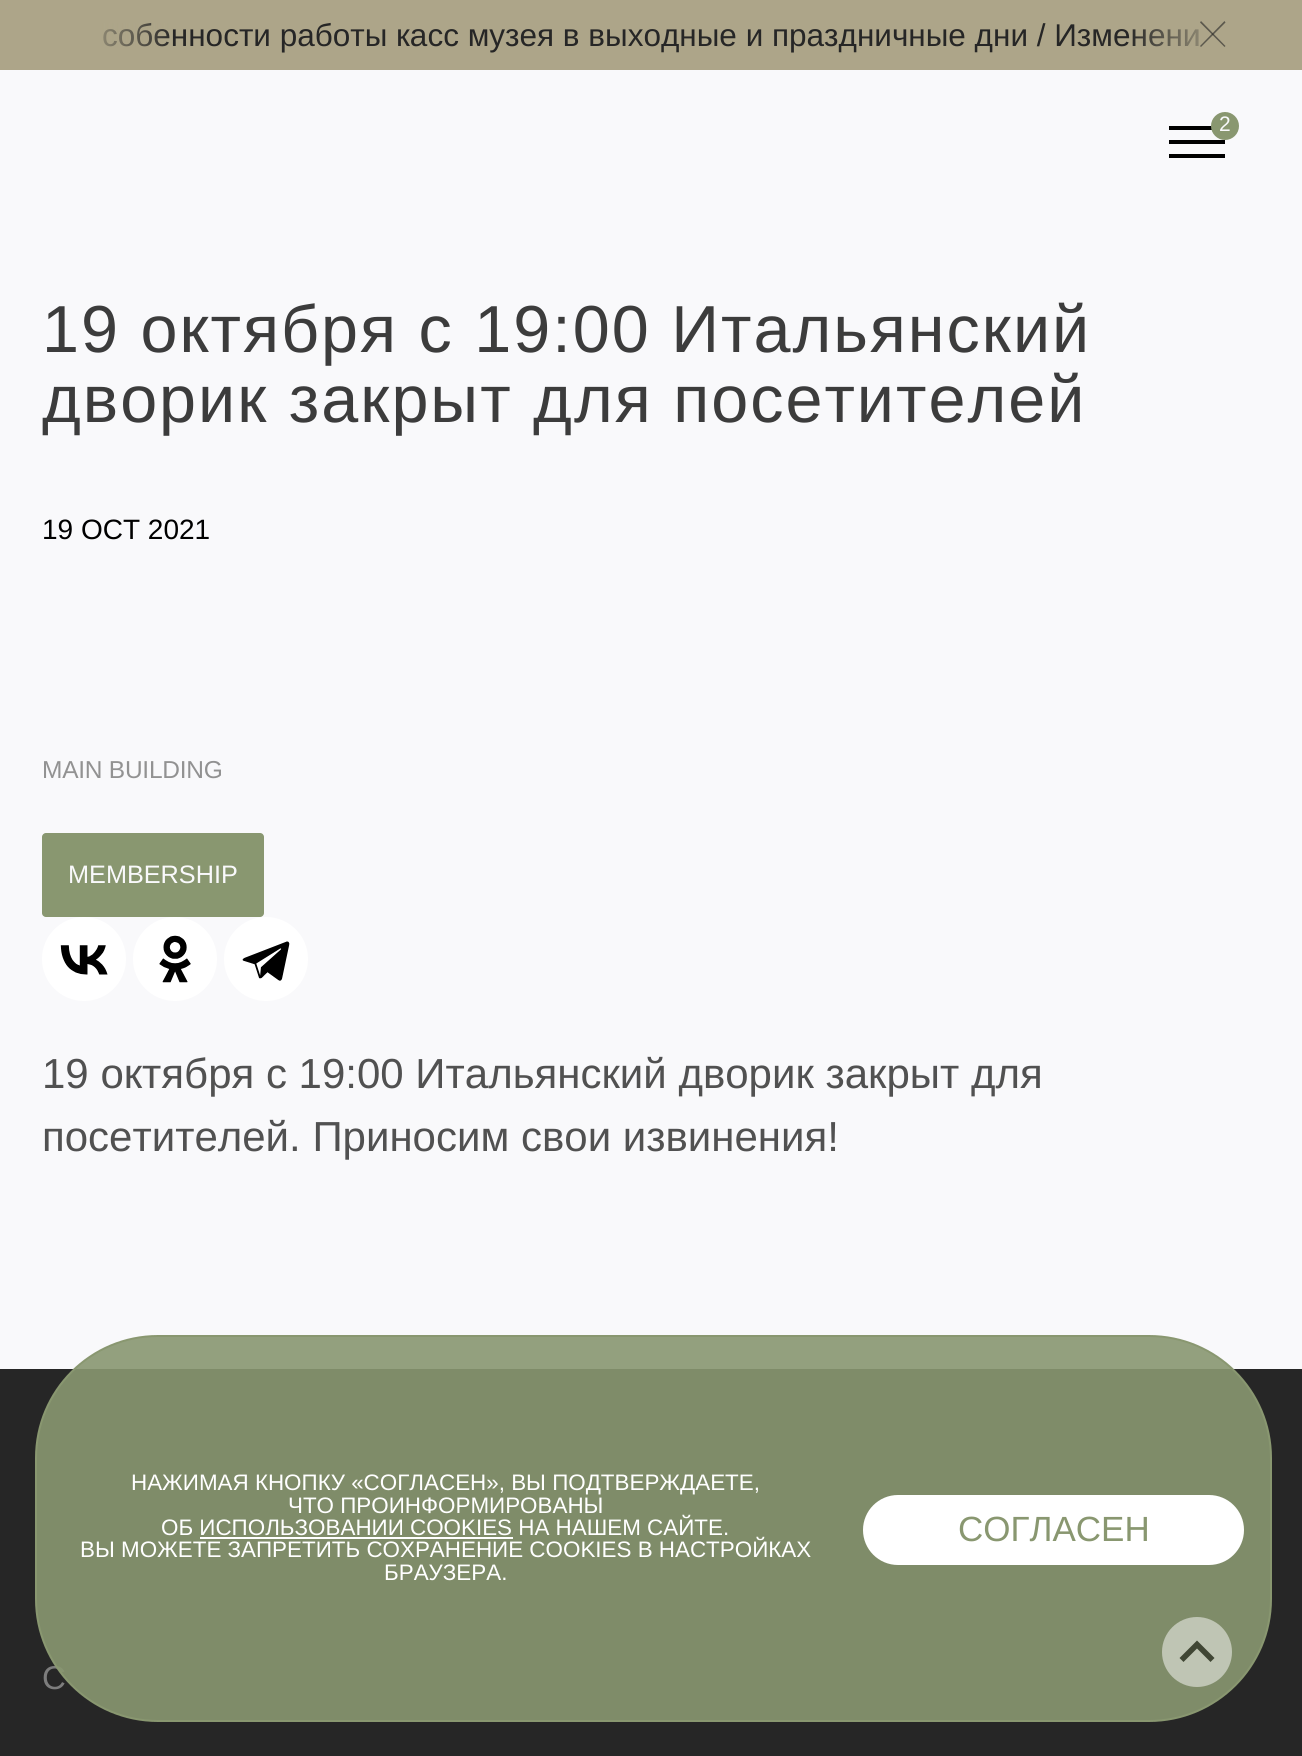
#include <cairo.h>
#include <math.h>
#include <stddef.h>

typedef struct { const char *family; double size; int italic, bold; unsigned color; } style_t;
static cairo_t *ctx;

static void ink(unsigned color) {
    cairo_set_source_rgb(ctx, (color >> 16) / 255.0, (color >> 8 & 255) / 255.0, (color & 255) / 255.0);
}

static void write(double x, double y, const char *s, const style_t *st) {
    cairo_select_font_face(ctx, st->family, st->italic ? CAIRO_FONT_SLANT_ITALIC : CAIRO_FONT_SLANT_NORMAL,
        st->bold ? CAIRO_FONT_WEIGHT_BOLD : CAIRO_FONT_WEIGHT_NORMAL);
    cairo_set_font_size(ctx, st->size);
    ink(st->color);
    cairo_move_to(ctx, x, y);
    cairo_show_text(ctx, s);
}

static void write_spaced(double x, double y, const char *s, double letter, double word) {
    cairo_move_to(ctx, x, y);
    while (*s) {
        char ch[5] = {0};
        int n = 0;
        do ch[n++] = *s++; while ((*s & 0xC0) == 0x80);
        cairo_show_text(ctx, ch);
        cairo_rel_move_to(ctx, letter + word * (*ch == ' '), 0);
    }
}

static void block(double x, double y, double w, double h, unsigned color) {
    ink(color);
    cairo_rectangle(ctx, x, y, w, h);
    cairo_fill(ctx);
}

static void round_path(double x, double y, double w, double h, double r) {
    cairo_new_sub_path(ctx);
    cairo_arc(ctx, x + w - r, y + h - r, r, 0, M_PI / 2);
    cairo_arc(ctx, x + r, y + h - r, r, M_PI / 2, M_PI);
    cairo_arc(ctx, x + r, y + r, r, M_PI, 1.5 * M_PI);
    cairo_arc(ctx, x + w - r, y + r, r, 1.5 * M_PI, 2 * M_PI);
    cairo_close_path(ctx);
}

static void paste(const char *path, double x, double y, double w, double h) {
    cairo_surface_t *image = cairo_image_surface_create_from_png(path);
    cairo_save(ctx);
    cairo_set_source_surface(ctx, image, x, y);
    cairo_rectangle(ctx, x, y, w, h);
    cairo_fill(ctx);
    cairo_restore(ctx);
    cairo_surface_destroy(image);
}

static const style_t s1 = {"Liberation Sans", 31.5, 0, 0, 0x262626};
static const style_t s2 = {"Liberation Sans", 21, 0, 0, 0xf9f9fb};
static const style_t s3 = {"Liberation Sans", 33, 0, 0, 0x7d7d7d};
static const style_t s4 = {"Liberation Sans", 28, 0, 0, 0x000000};
static const style_t s5 = {"Liberation Sans", 25.25, 0, 0, 0xf9f9fb};
static const style_t s6 = {"Liberation Sans", 42, 0, 0, 0x515151};
static const style_t s7 = {"Liberation Sans", 22.4, 0, 0, 0xffffff};
static const style_t s8 = {"Liberation Sans", 35, 0, 0, 0x899770};

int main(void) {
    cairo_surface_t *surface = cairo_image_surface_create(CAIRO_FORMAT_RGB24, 1302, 1756);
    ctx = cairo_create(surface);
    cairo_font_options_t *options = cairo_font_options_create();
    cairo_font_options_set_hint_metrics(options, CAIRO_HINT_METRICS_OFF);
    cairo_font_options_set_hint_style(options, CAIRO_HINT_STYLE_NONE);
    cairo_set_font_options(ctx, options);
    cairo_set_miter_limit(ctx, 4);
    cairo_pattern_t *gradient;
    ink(0xf9f9fb);
    cairo_paint(ctx);
    block(0, 0, 1302, 70, 0xada589);
    write(102, 46, "собенности работы касс музея в выходные и праздничные дни / Изменени", &s1);
    gradient = cairo_pattern_create_linear(1127, 35, 1225, 35);
    cairo_pattern_add_color_stop_rgba(gradient, 0, 0.678, 0.647, 0.537, 0);
    cairo_pattern_add_color_stop_rgba(gradient, 1, 0.678, 0.647, 0.537, 1);
    cairo_set_source(ctx, gradient);
    cairo_pattern_destroy(gradient);
    cairo_rectangle(ctx, 1132, 29, 66, 18);
    cairo_fill(ctx);
    cairo_set_source_rgba(ctx, 0.149, 0.149, 0.149, 0.6);
    cairo_new_path(ctx);
    cairo_move_to(ctx, 1201, 21);
    cairo_line_to(ctx, 1225.5, 46);
    cairo_line_to(ctx, 1224.5, 47);
    cairo_line_to(ctx, 1200, 22.5);
    cairo_close_path(ctx);
    cairo_fill(ctx);
    cairo_new_path(ctx);
    cairo_move_to(ctx, 1200, 46);
    cairo_line_to(ctx, 1224.5, 21);
    cairo_line_to(ctx, 1225.5, 22.5);
    cairo_line_to(ctx, 1201, 47);
    cairo_close_path(ctx);
    cairo_fill(ctx);
    gradient = cairo_pattern_create_linear(175, 28, 77, 28);
    cairo_pattern_add_color_stop_rgba(gradient, 0, 0.678, 0.647, 0.537, 0);
    cairo_pattern_add_color_stop_rgba(gradient, 1, 0.678, 0.647, 0.537, 1);
    cairo_set_source(ctx, gradient);
    cairo_pattern_destroy(gradient);
    cairo_rectangle(ctx, 102, 23, 67, 24);
    cairo_fill(ctx);
    block(1169, 126, 43, 4, 0x000000);
    ink(0x899770);
    cairo_arc(ctx, 1225, 126, 14, 0, 2 * M_PI);
    cairo_fill(ctx);
    write(1219, 131, "2", &s2);
    block(1169, 140, 56, 4, 0x000000);
    block(1169, 154, 56, 4, 0x000000);
    block(0, 1369, 1302, 387, 0x262626);
    write(42, 1689, "С", &s3);
    cairo_set_source_rgba(ctx, 0.537, 0.592, 0.439, 0.9);
    round_path(36, 1336, 1235, 385, 122);
    cairo_fill_preserve(ctx);
    ink(0x899770);
    cairo_stroke(ctx);
    ink(0xbfc5b4);
    cairo_arc(ctx, 1197, 1652, 35, 0, 2 * M_PI);
    cairo_fill(ctx);
    ink(0x404634);
    cairo_new_path(ctx);
    cairo_move_to(ctx, 1183.5, 1662);
    cairo_line_to(ctx, 1197, 1648.5);
    cairo_line_to(ctx, 1210.5, 1662);
    cairo_line_to(ctx, 1214.5, 1658);
    cairo_line_to(ctx, 1197, 1640.5);
    cairo_line_to(ctx, 1179.5, 1658);
    cairo_close_path(ctx);
    cairo_fill(ctx);
    cairo_set_font_size(ctx, 66.5);
    ink(0x3c3c3c);
    write_spaced(42, 352, "19 октября с 19:00 Итальянский", 2, 0);
    write_spaced(42, 422, "дворик закрыт для посетителей", 2, 0);
    write(42, 539, "19 OCT 2021", &s4);
    cairo_set_font_size(ctx, 24.5);
    ink(0x929292);
    write_spaced(42, 778, "MAIN BUILDING", -0.25, 0);
    ink(0x899770);
    round_path(42, 833, 222, 84, 4);
    cairo_fill(ctx);
    write(68, 883, "MEMBERSHIP", &s5);
    ink(0xffffff);
    cairo_new_path(ctx);
    cairo_arc(ctx, 84, 959, 42, 0, 2 * M_PI);
    cairo_fill(ctx);
    paste("pic1.png", 60, 945, 48, 30);
    cairo_arc(ctx, 175, 959, 42, 0, 2 * M_PI);
    cairo_fill(ctx);
    paste("pic2.png", 159, 935, 32, 48);
    cairo_arc(ctx, 266, 959, 42, 0, 2 * M_PI);
    cairo_fill(ctx);
    paste("pic3.png", 242, 941, 48, 40);
    write(42, 1088, "19 октября с 19:00 Итальянский дворик закрыт для", &s6);
    write(42, 1151, "посетителей. Приносим свои извинения!", &s6);
    write(131, 1490, "НАЖИМАЯ КНОПКУ «СОГЛАСЕН», ВЫ ПОДТВЕРЖДАЕТЕ,", &s7);
    write(288, 1513, "ЧТО ПРОИНФОРМИРОВАНЫ", &s7);
    write(161, 1535, "ОБ ИСПОЛЬЗОВАНИИ COOKIES НА НАШЕМ САЙТЕ.", &s7);
    block(200, 1537, 313, 2, 0xffffff);
    write(80, 1557, "ВЫ МОЖЕТЕ ЗАПРЕТИТЬ СОХРАНЕНИЕ COOKIES В НАСТРОЙКАХ", &s7);
    write(384, 1580, "БРАУЗЕРА.", &s7);
    round_path(863, 1495, 381, 70, 35);
    cairo_fill(ctx);
    write(958, 1541, "СОГЛАСЕН", &s8);
    cairo_surface_write_to_png(surface, "screenshot.png");
    cairo_font_options_destroy(options);
    cairo_destroy(ctx);
    cairo_surface_destroy(surface);
    return 0;
}
